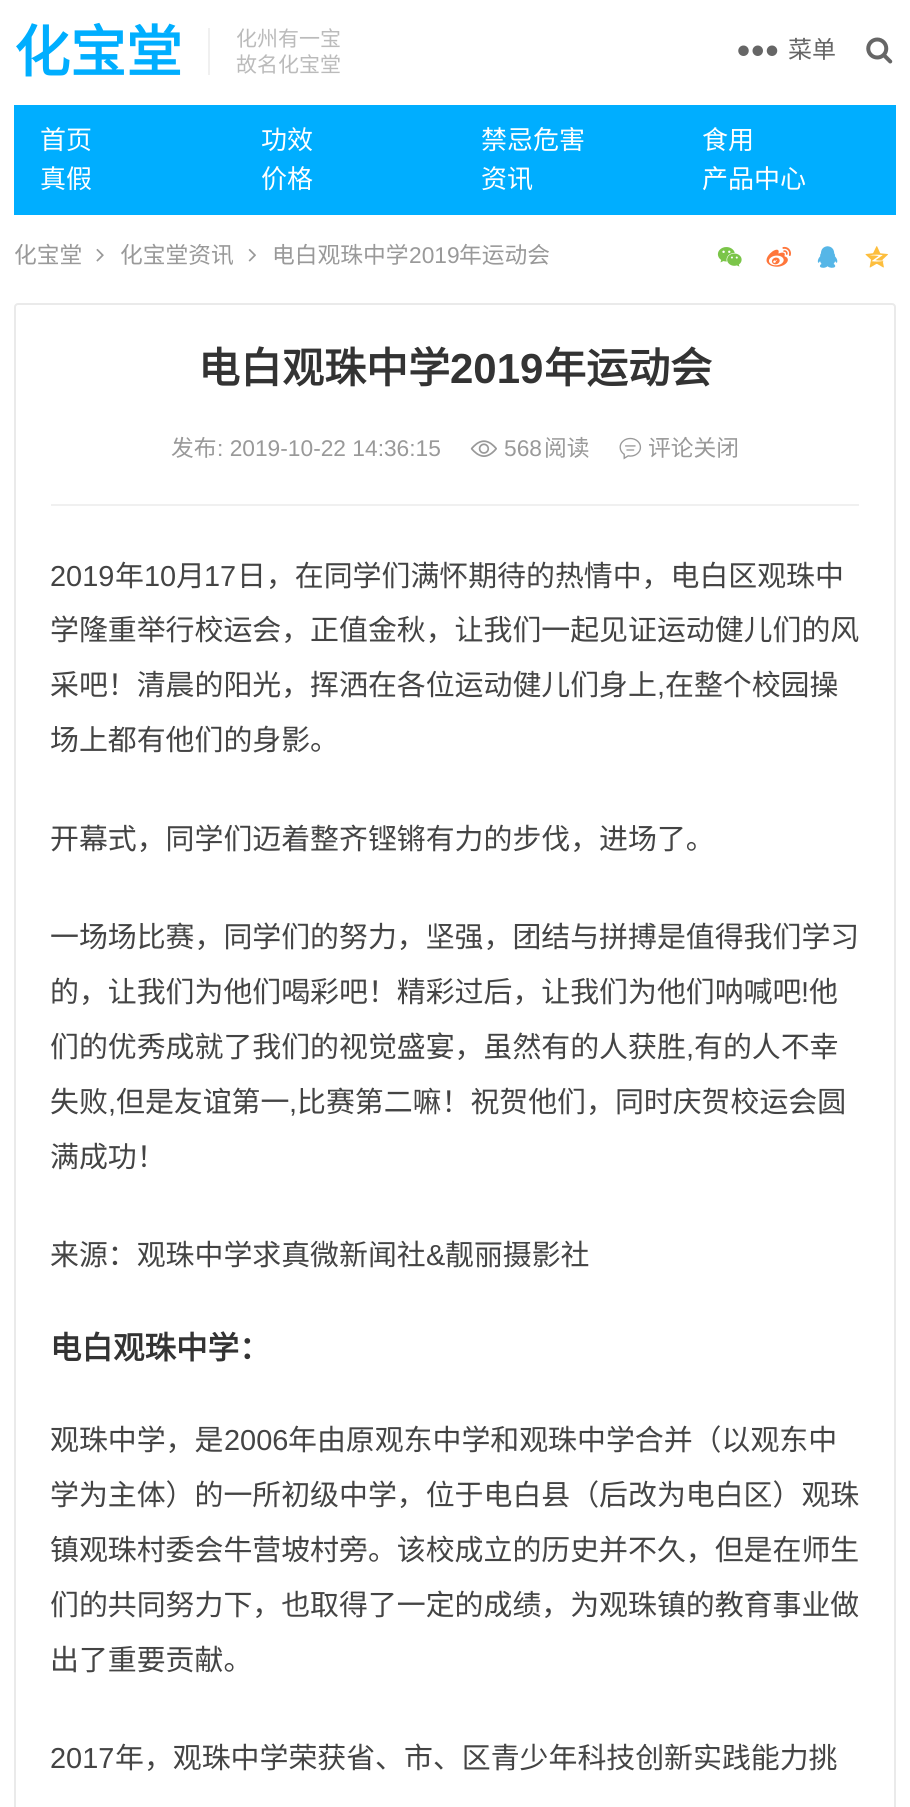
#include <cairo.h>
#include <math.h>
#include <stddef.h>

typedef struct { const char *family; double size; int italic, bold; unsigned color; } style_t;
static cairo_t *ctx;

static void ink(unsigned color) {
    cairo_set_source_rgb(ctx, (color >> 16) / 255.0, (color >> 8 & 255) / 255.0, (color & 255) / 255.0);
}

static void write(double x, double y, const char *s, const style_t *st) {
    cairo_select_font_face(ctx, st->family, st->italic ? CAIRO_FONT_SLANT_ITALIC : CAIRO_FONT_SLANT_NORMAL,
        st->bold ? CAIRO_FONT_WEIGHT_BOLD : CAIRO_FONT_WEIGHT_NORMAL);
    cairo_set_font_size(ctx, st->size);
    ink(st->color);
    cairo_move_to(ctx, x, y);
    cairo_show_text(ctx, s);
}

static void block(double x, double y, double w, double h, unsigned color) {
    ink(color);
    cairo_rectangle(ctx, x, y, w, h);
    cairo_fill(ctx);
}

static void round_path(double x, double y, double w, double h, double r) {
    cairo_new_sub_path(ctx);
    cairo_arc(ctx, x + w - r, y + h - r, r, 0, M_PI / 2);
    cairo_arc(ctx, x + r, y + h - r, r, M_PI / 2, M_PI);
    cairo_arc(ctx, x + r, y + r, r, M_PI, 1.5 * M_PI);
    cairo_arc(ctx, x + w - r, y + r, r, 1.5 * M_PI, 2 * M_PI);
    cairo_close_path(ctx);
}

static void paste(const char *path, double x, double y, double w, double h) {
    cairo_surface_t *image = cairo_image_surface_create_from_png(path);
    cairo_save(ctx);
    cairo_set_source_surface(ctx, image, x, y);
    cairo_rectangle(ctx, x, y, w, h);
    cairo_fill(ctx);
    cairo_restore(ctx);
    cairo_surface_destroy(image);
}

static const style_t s1 = {"Noto Sans CJK SC", 56, 0, 1, 0x00aeff};
static const style_t s2 = {"Noto Sans CJK SC", 21, 0, 0, 0xbbbbbb};
static const style_t s3 = {"Noto Sans CJK SC", 24, 0, 0, 0x666666};
static const style_t s4 = {"Noto Sans CJK SC", 26, 0, 0, 0xffffff};
static const style_t s5 = {"Noto Sans CJK SC", 22.75, 0, 0, 0x999999};
static const style_t s6 = {"Liberation Sans", 22.75, 0, 0, 0x999999};
static const style_t s7 = {"Noto Sans CJK SC", 42, 0, 1, 0x333333};
static const style_t s8 = {"Liberation Sans", 42, 0, 1, 0x333333};
static const style_t s9 = {"Liberation Sans", 28.9, 0, 0, 0x444444};
static const style_t s10 = {"Noto Sans CJK SC", 28.9, 0, 0, 0x444444};
static const style_t s11 = {"Noto Sans CJK SC", 31.5, 0, 1, 0x333333};

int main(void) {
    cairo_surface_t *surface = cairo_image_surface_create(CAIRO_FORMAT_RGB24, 910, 1807);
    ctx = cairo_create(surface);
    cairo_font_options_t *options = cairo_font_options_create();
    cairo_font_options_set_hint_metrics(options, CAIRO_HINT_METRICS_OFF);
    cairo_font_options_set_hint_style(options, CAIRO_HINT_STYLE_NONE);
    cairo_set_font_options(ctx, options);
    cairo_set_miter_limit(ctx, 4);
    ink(0xffffff);
    cairo_paint(ctx);
    write(14, 72, "化宝堂", &s1);
    block(208, 28, 2, 47, 0xf0f0f0);
    write(236, 46, "化州有一宝", &s2);
    write(236, 72, "故名化宝堂", &s2);
    paste("pic1.png", 738, 45, 40, 11);
    write(788, 58, "菜单", &s3);
    paste("pic2.png", 866, 37, 27, 27);
    block(14, 105, 882, 110, 0x00aeff);
    write(40, 149, "首页", &s4);
    write(261, 149, "功效", &s4);
    write(481, 149, "禁忌危害", &s4);
    write(702, 149, "食用", &s4);
    write(40, 188, "真假", &s4);
    write(261, 188, "价格", &s4);
    write(481, 188, "资讯", &s4);
    write(702, 188, "产品中心", &s4);
    write(14, 263, "化宝堂", &s5);
    paste("pic3.png", 96, 248, 8, 14);
    write(120, 263, "化宝堂资讯", &s5);
    paste("pic4.png", 248, 248, 8, 14);
    write(272, 263, "电白观珠中学", &s5);
    write(409, 263, "2019", &s6);
    write(459, 263, "年运动会", &s5);
    paste("pic5.png", 717, 247, 25, 20);
    paste("pic6.png", 766, 246, 25, 21);
    paste("pic7.png", 817, 246, 21, 22);
    paste("pic8.png", 865, 246, 23, 22);
    round_path(15, 304, 880, 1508, 3);
    ink(0xeaeaea);
    cairo_stroke(ctx);
    block(51, 504, 808, 2, 0xf0f0f0);
    write(198, 383, "电白观珠中学", &s7);
    write(450, 383, "2019", &s8);
    write(544, 383, "年运动会", &s7);
    write(171, 456, "发布", &s5);
    write(217, 456, ": 2019-10-22 14:36:15", &s6);
    paste("pic9.png", 470, 440, 27, 17);
    write(504, 456, "568", &s6);
    write(544, 456, "阅读", &s5);
    paste("pic10.png", 619, 437, 23, 23);
    write(648, 456, "评论关闭", &s5);
    write(50, 586, "2019", &s9);
    write(115, 586, "年", &s10);
    write(144, 586, "10", &s9);
    write(176, 586, "月", &s10);
    write(204, 586, "17", &s9);
    write(237, 586, "日，在同学们满怀期待的热情中，电白区观珠中", &s10);
    write(50, 640, "学隆重举行校运会，正值金秋，让我们一起见证运动健儿们的风", &s10);
    write(50, 695, "采吧！清晨的阳光，挥洒在各位运动健儿们身上", &s10);
    write(657, 695, ",", &s9);
    write(665, 695, "在整个校园操", &s10);
    write(50, 750, "场上都有他们的身影。", &s10);
    write(50, 849, "开幕式，同学们迈着整齐铿锵有力的步伐，进场了。", &s10);
    write(50, 947, "一场场比赛，同学们的努力，坚强，团结与拼搏是值得我们学习", &s10);
    write(50, 1002, "的，让我们为他们喝彩吧！精彩过后，让我们为他们呐喊吧", &s10);
    write(801, 1002, "!", &s9);
    write(809, 1002, "他", &s10);
    write(50, 1057, "们的优秀成就了我们的视觉盛宴，虽然有的人获胜", &s10);
    write(686, 1057, ",", &s9);
    write(694, 1057, "有的人不幸", &s10);
    write(50, 1112, "失败", &s10);
    write(108, 1112, ",", &s9);
    write(116, 1112, "但是友谊第一", &s10);
    write(289, 1112, ",", &s9);
    write(297, 1112, "比赛第二嘛！祝贺他们，同时庆贺校运会圆", &s10);
    write(50, 1167, "满成功！", &s10);
    write(50, 1265, "来源：观珠中学求真微新闻社", &s10);
    write(426, 1265, "&", &s9);
    write(445, 1265, "靓丽摄影社", &s10);
    write(50, 1359, "电白观珠中学：", &s11);
    write(50, 1450, "观珠中学，是", &s10);
    write(224, 1450, "2006", &s9);
    write(288, 1450, "年由原观东中学和观珠中学合并（以观东中", &s10);
    write(50, 1505, "学为主体）的一所初级中学，位于电白县（后改为电白区）观珠", &s10);
    write(50, 1560, "镇观珠村委会牛营坡村旁。该校成立的历史并不久，但是在师生", &s10);
    write(50, 1615, "们的共同努力下，也取得了一定的成绩，为观珠镇的教育事业做", &s10);
    write(50, 1670, "出了重要贡献。", &s10);
    write(50, 1768, "2017", &s9);
    write(115, 1768, "年，观珠中学荣获省、市、区青少年科技创新实践能力挑", &s10);
    cairo_surface_write_to_png(surface, "screenshot.png");
    cairo_font_options_destroy(options);
    cairo_destroy(ctx);
    cairo_surface_destroy(surface);
    return 0;
}
